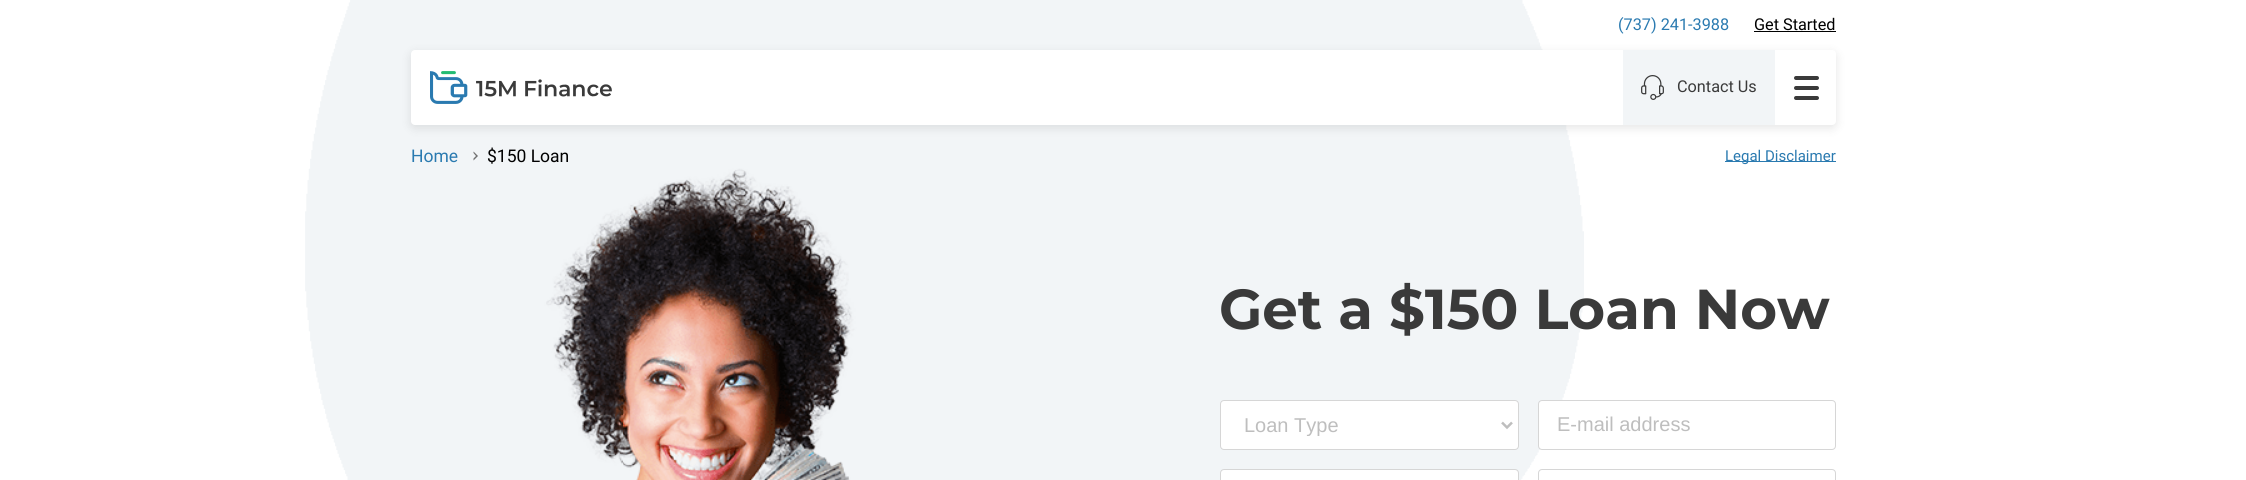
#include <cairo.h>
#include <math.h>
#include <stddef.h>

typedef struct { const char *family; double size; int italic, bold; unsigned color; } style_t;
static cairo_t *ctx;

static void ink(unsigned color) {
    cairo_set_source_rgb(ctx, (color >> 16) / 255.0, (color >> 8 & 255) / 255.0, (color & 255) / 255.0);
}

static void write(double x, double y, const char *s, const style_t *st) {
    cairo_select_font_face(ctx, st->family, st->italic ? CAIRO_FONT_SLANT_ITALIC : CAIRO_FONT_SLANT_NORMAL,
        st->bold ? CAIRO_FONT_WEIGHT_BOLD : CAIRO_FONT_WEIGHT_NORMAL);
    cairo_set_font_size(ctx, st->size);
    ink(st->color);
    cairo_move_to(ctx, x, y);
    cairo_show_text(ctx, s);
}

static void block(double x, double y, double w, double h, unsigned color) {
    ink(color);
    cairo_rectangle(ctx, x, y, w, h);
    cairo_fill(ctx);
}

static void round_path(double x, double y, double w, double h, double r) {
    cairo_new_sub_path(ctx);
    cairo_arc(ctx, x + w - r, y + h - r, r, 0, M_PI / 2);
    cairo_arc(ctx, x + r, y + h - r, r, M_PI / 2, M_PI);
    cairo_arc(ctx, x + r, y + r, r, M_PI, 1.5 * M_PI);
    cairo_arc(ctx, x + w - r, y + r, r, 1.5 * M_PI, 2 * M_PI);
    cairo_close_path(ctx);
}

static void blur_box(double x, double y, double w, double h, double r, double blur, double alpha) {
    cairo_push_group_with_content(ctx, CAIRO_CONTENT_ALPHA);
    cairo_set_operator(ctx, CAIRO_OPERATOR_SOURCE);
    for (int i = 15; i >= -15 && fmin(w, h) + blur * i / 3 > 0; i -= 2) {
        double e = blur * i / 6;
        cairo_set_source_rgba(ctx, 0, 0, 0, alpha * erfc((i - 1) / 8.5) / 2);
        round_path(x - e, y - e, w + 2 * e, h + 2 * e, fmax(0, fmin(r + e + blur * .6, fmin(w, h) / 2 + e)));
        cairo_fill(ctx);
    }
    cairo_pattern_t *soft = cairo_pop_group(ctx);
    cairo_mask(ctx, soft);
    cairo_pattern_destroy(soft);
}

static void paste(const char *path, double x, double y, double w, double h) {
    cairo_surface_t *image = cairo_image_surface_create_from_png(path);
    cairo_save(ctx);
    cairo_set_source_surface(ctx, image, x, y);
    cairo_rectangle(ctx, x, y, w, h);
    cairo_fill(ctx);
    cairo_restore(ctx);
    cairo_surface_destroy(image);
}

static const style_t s1 = {"Roboto", 16.25, 0, 0, 0x2a7ab0};
static const style_t s2 = {"Roboto", 16.25, 0, 0, 0x000000};
static const style_t s3 = {"Roboto", 16.25, 0, 0, 0x3a3a3a};
static const style_t s4 = {"Roboto", 17.5, 0, 0, 0x2a7ab0};
static const style_t s5 = {"Roboto", 17.5, 0, 0, 0x000000};
static const style_t s6 = {"Roboto", 15, 0, 0, 0x2a7ab0};
static const style_t s7 = {"Montserrat", 56.25, 0, 1, 0x3a3a3a};
static const style_t s8 = {"Liberation Sans", 20, 0, 0, 0xbebebe};

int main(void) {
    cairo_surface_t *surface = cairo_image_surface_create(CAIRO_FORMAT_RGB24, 2246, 480);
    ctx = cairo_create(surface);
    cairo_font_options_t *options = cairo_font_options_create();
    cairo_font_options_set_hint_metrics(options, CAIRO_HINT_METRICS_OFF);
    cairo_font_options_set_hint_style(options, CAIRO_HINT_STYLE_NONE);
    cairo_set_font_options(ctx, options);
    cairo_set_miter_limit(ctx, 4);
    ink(0xffffff);
    cairo_paint(ctx);
    write(1618, 30, "(737) 241-3988", &s1);
    write(1754, 30, "Get Started", &s2);
    block(1754, 31, 82, 1, 0x000000);
    paste("pic3.png", 305, 0, 1279, 480);
    ink(0x000000);
    blur_box(411, 53, 1425, 75, 4, 5, 0.1);
    ink(0xffffff);
    round_path(411, 50, 1425, 75, 4);
    cairo_fill(ctx);
    paste("pic1.png", 430, 71, 182, 33);
    block(1623, 50, 152, 75, 0xf2f5f7);
    paste("pic2.png", 1641, 75, 23, 25);
    write(1677, 92, "Contact Us", &s3);
    round_path(1794, 96, 25, 4, 2);
    cairo_fill(ctx);
    round_path(1794, 76, 25, 4, 2);
    cairo_fill(ctx);
    round_path(1794, 86, 25, 4, 2);
    cairo_fill(ctx);
    write(411, 162, "Home", &s4);
    ink(0x707070);
    cairo_new_path(ctx);
    cairo_move_to(ctx, 473.5, 151.5);
    cairo_line_to(ctx, 478, 156);
    cairo_line_to(ctx, 476, 156);
    cairo_line_to(ctx, 473.5, 153);
    cairo_close_path(ctx);
    cairo_move_to(ctx, 478, 156);
    cairo_line_to(ctx, 473.5, 160.5);
    cairo_line_to(ctx, 473.5, 158.5);
    cairo_line_to(ctx, 476, 156);
    cairo_close_path(ctx);
    cairo_fill(ctx);
    write(487, 162, "$150 Loan", &s5);
    block(1725, 161, 111, 1, 0x2a7ab0);
    write(1725, 161, "Legal Disclaimer", &s6);
    write(1219, 329, "Get a $150 Loan Now", &s7);
    ink(0xffffff);
    round_path(1220.5, 400.5, 298, 49, 3.5);
    cairo_fill_preserve(ctx);
    ink(0xd6d6d6);
    cairo_set_line_width(ctx, 1);
    cairo_stroke(ctx);
    cairo_new_path(ctx);
    cairo_move_to(ctx, 1502, 422.5);
    cairo_line_to(ctx, 1507, 427.5);
    cairo_line_to(ctx, 1512, 422.5);
    ink(0xbebebe);
    cairo_set_line_width(ctx, 2.5);
    cairo_stroke(ctx);
    cairo_save(ctx);
    cairo_rectangle(ctx, 1245, 413, 234, 23);
    cairo_clip(ctx);
    write(1244, 432, "Loan Type", &s8);
    cairo_restore(ctx);
    ink(0xffffff);
    round_path(1538.5, 400.5, 297, 49, 3.5);
    cairo_fill_preserve(ctx);
    ink(0xd6d6d6);
    cairo_set_line_width(ctx, 1);
    cairo_stroke(ctx);
    write(1557, 431, "E-mail address", &s8);
    ink(0xffffff);
    round_path(1220.5, 469.5, 298, 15, 3.5);
    cairo_fill_preserve(ctx);
    ink(0xd6d6d6);
    cairo_stroke(ctx);
    round_path(1538.5, 469.5, 297, 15, 3.5);
    cairo_stroke(ctx);
    cairo_surface_write_to_png(surface, "screenshot.png");
    cairo_font_options_destroy(options);
    cairo_destroy(ctx);
    cairo_surface_destroy(surface);
    return 0;
}
